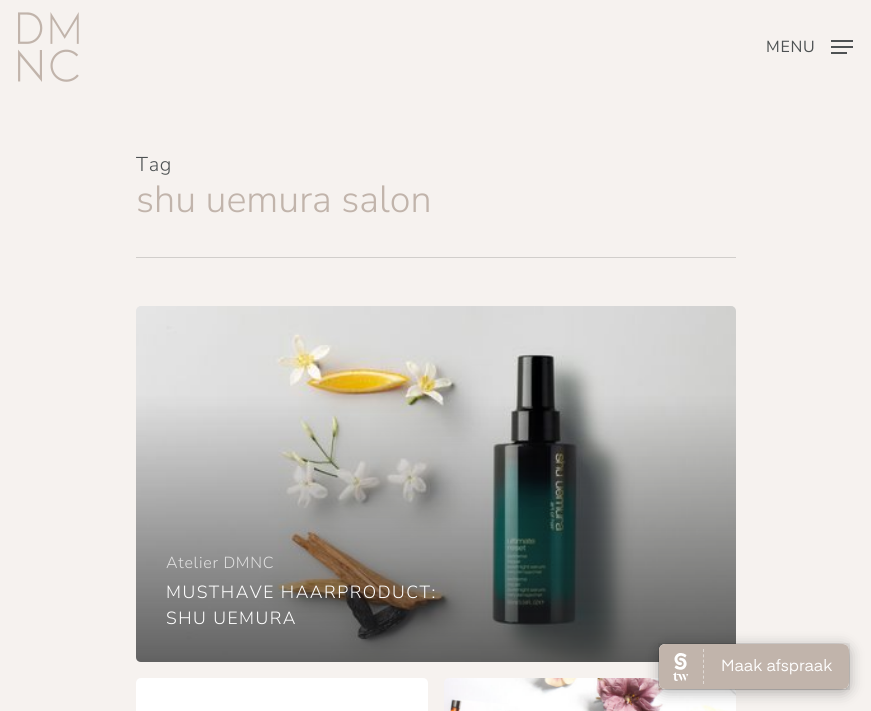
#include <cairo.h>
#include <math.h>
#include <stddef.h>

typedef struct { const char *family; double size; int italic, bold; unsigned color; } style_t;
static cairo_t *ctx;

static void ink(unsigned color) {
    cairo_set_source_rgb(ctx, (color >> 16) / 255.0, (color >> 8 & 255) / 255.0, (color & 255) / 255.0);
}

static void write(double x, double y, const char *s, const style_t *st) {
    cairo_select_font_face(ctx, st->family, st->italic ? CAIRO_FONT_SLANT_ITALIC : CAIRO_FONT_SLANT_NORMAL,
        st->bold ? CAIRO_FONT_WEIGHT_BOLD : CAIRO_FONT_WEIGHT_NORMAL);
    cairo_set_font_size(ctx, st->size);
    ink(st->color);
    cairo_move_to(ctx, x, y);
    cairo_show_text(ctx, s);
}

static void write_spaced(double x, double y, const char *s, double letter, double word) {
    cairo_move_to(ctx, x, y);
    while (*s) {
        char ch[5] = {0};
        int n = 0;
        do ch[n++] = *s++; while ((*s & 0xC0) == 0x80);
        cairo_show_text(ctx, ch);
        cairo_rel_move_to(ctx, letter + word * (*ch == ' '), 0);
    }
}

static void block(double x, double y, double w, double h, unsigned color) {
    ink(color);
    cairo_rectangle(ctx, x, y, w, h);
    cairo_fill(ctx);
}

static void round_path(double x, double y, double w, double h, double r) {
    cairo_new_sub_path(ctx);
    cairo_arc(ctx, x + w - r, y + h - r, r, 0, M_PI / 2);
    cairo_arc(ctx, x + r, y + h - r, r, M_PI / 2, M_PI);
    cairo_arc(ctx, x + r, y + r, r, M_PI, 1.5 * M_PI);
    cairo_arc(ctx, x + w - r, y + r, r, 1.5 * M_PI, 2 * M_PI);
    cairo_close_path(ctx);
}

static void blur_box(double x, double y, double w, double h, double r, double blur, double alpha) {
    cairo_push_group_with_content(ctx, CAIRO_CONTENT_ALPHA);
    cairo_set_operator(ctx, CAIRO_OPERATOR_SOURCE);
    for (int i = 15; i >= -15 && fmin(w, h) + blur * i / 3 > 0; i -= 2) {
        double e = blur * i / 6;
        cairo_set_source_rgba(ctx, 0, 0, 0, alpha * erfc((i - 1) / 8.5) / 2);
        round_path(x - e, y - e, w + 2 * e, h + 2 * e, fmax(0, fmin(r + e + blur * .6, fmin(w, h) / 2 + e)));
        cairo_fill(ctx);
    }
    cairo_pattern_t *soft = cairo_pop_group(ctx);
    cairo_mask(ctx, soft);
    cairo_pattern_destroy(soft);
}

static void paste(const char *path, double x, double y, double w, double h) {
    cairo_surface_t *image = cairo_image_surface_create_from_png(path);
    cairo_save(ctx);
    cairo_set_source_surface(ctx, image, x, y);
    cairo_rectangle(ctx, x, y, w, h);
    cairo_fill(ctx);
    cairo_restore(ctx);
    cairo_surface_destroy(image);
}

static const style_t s1 = {"Nunito Sans Light", 37.75, 0, 0, 0xc1b4ab};

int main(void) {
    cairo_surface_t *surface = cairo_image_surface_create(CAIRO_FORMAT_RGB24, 871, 711);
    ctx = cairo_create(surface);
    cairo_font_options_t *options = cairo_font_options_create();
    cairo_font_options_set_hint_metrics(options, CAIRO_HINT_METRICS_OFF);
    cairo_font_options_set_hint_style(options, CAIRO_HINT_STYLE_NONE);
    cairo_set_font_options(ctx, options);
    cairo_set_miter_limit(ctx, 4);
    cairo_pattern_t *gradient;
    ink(0xf6f2ef);
    cairo_paint(ctx);
    paste("pic1.png", 18, 12, 61, 70);
    cairo_select_font_face(ctx, "Nunito Sans", CAIRO_FONT_SLANT_NORMAL, CAIRO_FONT_WEIGHT_NORMAL);
    cairo_set_font_size(ctx, 16);
    ink(0x4e5253);
    write_spaced(766, 52, "MENU", 0.75, 0);
    block(831, 40, 22, 2, 0x4e5253);
    block(831, 52, 16, 2, 0x4e5253);
    block(831, 46, 22, 2, 0x4e5253);
    block(136, 257, 600, 1, 0xd1cecb);
    cairo_select_font_face(ctx, "Nunito Sans Light", CAIRO_FONT_SLANT_NORMAL, CAIRO_FONT_WEIGHT_NORMAL);
    cairo_set_font_size(ctx, 20);
    ink(0x4e5253);
    write_spaced(136, 171, "Tag", 0.75, 0);
    write(136, 212, "shu uemura salon", &s1);
    paste("pic2.png", 136, 306, 600, 356);
    gradient = cairo_pattern_create_linear(438, 395, 438, 663);
    cairo_pattern_add_color_stop_rgba(gradient, 0, 0.137, 0.137, 0.137, 0);
    cairo_pattern_add_color_stop_rgba(gradient, 1, 0.137, 0.137, 0.137, 0.65);
    cairo_set_source(ctx, gradient);
    cairo_pattern_destroy(gradient);
    cairo_new_path(ctx);
    cairo_move_to(ctx, 136, 395);
    cairo_line_to(ctx, 736, 395);
    cairo_line_to(ctx, 736, 657);
    cairo_curve_to(ctx, 736, 660, 734, 662, 731, 662);
    cairo_line_to(ctx, 141, 662);
    cairo_curve_to(ctx, 138, 662, 136, 660, 136, 657);
    cairo_close_path(ctx);
    cairo_fill(ctx);
    cairo_set_font_size(ctx, 16);
    ink(0xdfdfdf);
    write_spaced(166, 568, "Atelier DMNC", 0.75, 0);
    cairo_set_font_size(ctx, 17.6);
    ink(0xffffff);
    write_spaced(166, 598, "MUSTHAVE HAARPRODUCT:", 1.5, 0);
    write_spaced(166, 624, "SHU UEMURA", 1.5, 0);
    paste("pic3.png", 136, 678, 292, 33);
    paste("pic4.png", 444, 678, 292, 33);
    ink(0x000000);
    blur_box(659, 647, 190, 45, 6, 7.5, 0.3);
    paste("pic5.png", 658, 643, 192, 47);
    cairo_surface_write_to_png(surface, "screenshot.png");
    cairo_font_options_destroy(options);
    cairo_destroy(ctx);
    cairo_surface_destroy(surface);
    return 0;
}
